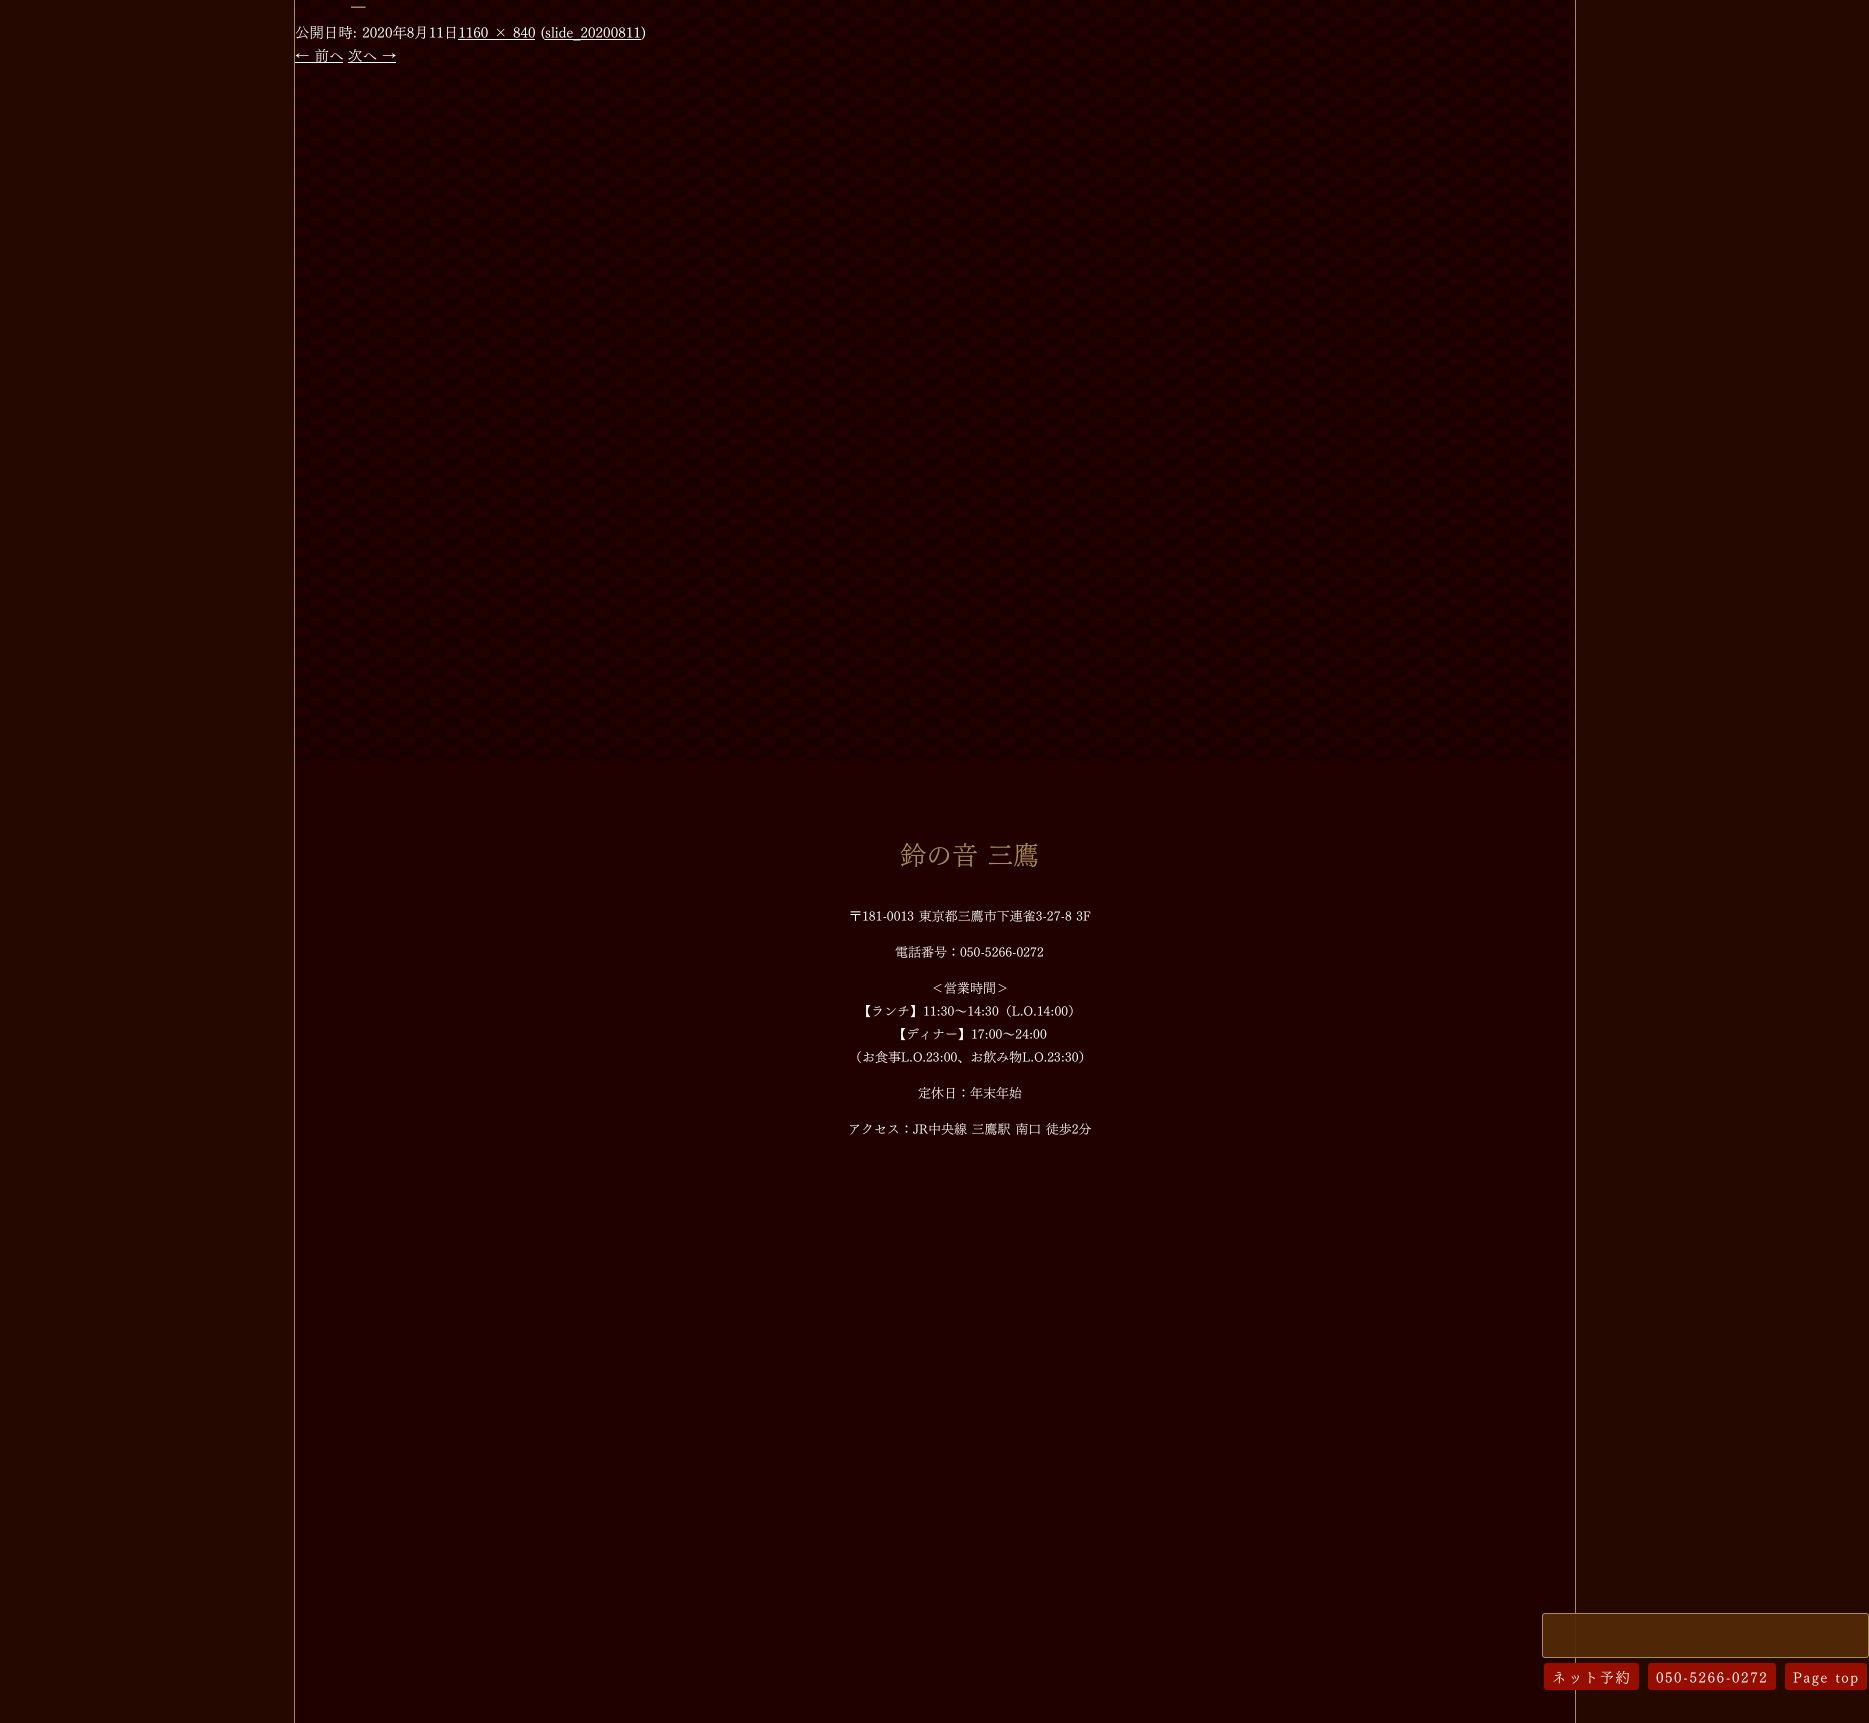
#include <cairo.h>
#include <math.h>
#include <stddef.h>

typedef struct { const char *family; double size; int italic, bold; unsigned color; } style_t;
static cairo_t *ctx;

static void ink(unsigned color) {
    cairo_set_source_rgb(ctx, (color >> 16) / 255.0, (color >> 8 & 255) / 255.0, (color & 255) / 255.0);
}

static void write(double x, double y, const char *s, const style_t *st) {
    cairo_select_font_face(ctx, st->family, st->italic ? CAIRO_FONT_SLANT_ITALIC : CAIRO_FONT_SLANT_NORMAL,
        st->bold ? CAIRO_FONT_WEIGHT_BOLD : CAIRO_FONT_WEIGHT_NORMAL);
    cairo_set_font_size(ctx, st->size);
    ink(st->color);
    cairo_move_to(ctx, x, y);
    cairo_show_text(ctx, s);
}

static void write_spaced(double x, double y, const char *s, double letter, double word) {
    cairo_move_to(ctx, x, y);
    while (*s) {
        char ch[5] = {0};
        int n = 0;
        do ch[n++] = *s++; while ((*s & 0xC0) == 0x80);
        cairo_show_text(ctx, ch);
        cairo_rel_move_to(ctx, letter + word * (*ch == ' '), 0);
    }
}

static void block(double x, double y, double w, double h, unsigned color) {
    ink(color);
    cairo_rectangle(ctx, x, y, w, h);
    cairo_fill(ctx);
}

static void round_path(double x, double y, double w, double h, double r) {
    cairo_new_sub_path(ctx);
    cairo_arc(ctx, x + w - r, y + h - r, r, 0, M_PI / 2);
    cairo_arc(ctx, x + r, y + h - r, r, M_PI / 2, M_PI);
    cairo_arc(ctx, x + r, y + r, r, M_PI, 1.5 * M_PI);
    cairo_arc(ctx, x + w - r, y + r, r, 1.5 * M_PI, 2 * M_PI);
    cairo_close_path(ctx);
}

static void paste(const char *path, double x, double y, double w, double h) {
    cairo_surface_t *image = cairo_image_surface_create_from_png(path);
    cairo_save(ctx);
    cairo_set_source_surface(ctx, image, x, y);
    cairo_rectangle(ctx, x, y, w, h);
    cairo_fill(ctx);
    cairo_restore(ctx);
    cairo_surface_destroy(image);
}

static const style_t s1 = {"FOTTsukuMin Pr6 Light", 29, 0, 0, 0xa68d5b};
static const style_t s2 = {"FOTTsukuMin Pr6 Light", 14.4, 0, 0, 0xffffff};
static const style_t s3 = {"FOTTsukuMin Pr6 Light", 26, 0, 0, 0xa68d5b};
static const style_t s4 = {"FOTTsukuMin Pr6 Light", 13, 0, 0, 0xffffff};

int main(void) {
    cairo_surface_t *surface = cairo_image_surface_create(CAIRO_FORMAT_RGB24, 1869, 1723);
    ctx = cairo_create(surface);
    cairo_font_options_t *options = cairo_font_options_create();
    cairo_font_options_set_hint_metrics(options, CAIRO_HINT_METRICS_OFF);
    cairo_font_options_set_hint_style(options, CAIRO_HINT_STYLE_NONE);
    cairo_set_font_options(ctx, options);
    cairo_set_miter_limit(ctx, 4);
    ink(0x250800);
    cairo_paint(ctx);
    paste("pic1.png", 295, 0, 1280, 761);
    block(1575, 0, 1, 1723, 0xa68d5b);
    block(294, 0, 1, 1723, 0xa68d5b);
    write(351, 3, "_", &s1);
    write(295, 38, "公開日時: 2020年8月11日1160 × 840 (", &s2);
    block(545, 39, 96, 1, 0xffffff);
    write(545, 38, "slide_20200811)", &s2);
    block(458, 39, 77, 1, 0xffffff);
    write(295, 61, "← 前へ", &s2);
    block(295, 62, 48, 1, 0xffffff);
    block(348, 62, 48, 1, 0xffffff);
    write(348, 61, "次へ →", &s2);
    block(295, 761, 1280, 962, 0x210100);
    write(900, 865, "鈴の音 三鷹", &s3);
    write(849, 921, "〒181-0013 東京都三鷹市下連雀3-27-8 3F", &s4);
    write(895, 957, "電話番号：050-5266-0272", &s4);
    write(931, 993, "＜営業時間＞", &s4);
    write(858, 1016, "【ランチ】11:30～14:30（L.O.14:00）", &s4);
    write(893, 1039, "【ディナー】17:00～24:00", &s4);
    write(849, 1062, "（お食事L.O.23:00、お飲み物L.O.23:30）", &s4);
    write(918, 1098, "定休日：年末年始", &s4);
    write(848, 1134, "アクセス：JR中央線 三鷹駅 南口 徒歩2分", &s4);
    cairo_set_source_rgba(ctx, 0.322, 0.161, 0.027, 0.95);
    round_path(1542.5, 1613.5, 326, 44, 2.5);
    cairo_fill_preserve(ctx);
    ink(0xa68d5b);
    cairo_set_line_width(ctx, 1);
    cairo_stroke(ctx);
    ink(0x970d00);
    round_path(1544, 1663, 95, 27, 3);
    cairo_fill(ctx);
    cairo_set_font_size(ctx, 14.4);
    ink(0xffffff);
    write_spaced(1552, 1683, "ネット予約", 1.5, 0);
    ink(0x970d00);
    round_path(1648, 1663, 128, 27, 3);
    cairo_fill(ctx);
    ink(0xffffff);
    write_spaced(1656, 1683, "050-5266-0272", 1.5, 0);
    ink(0x970d00);
    round_path(1785, 1663, 82, 27, 3);
    cairo_fill(ctx);
    ink(0xffffff);
    write_spaced(1793, 1683, "Page top", 1.5, 0);
    cairo_surface_write_to_png(surface, "screenshot.png");
    cairo_font_options_destroy(options);
    cairo_destroy(ctx);
    cairo_surface_destroy(surface);
    return 0;
}
